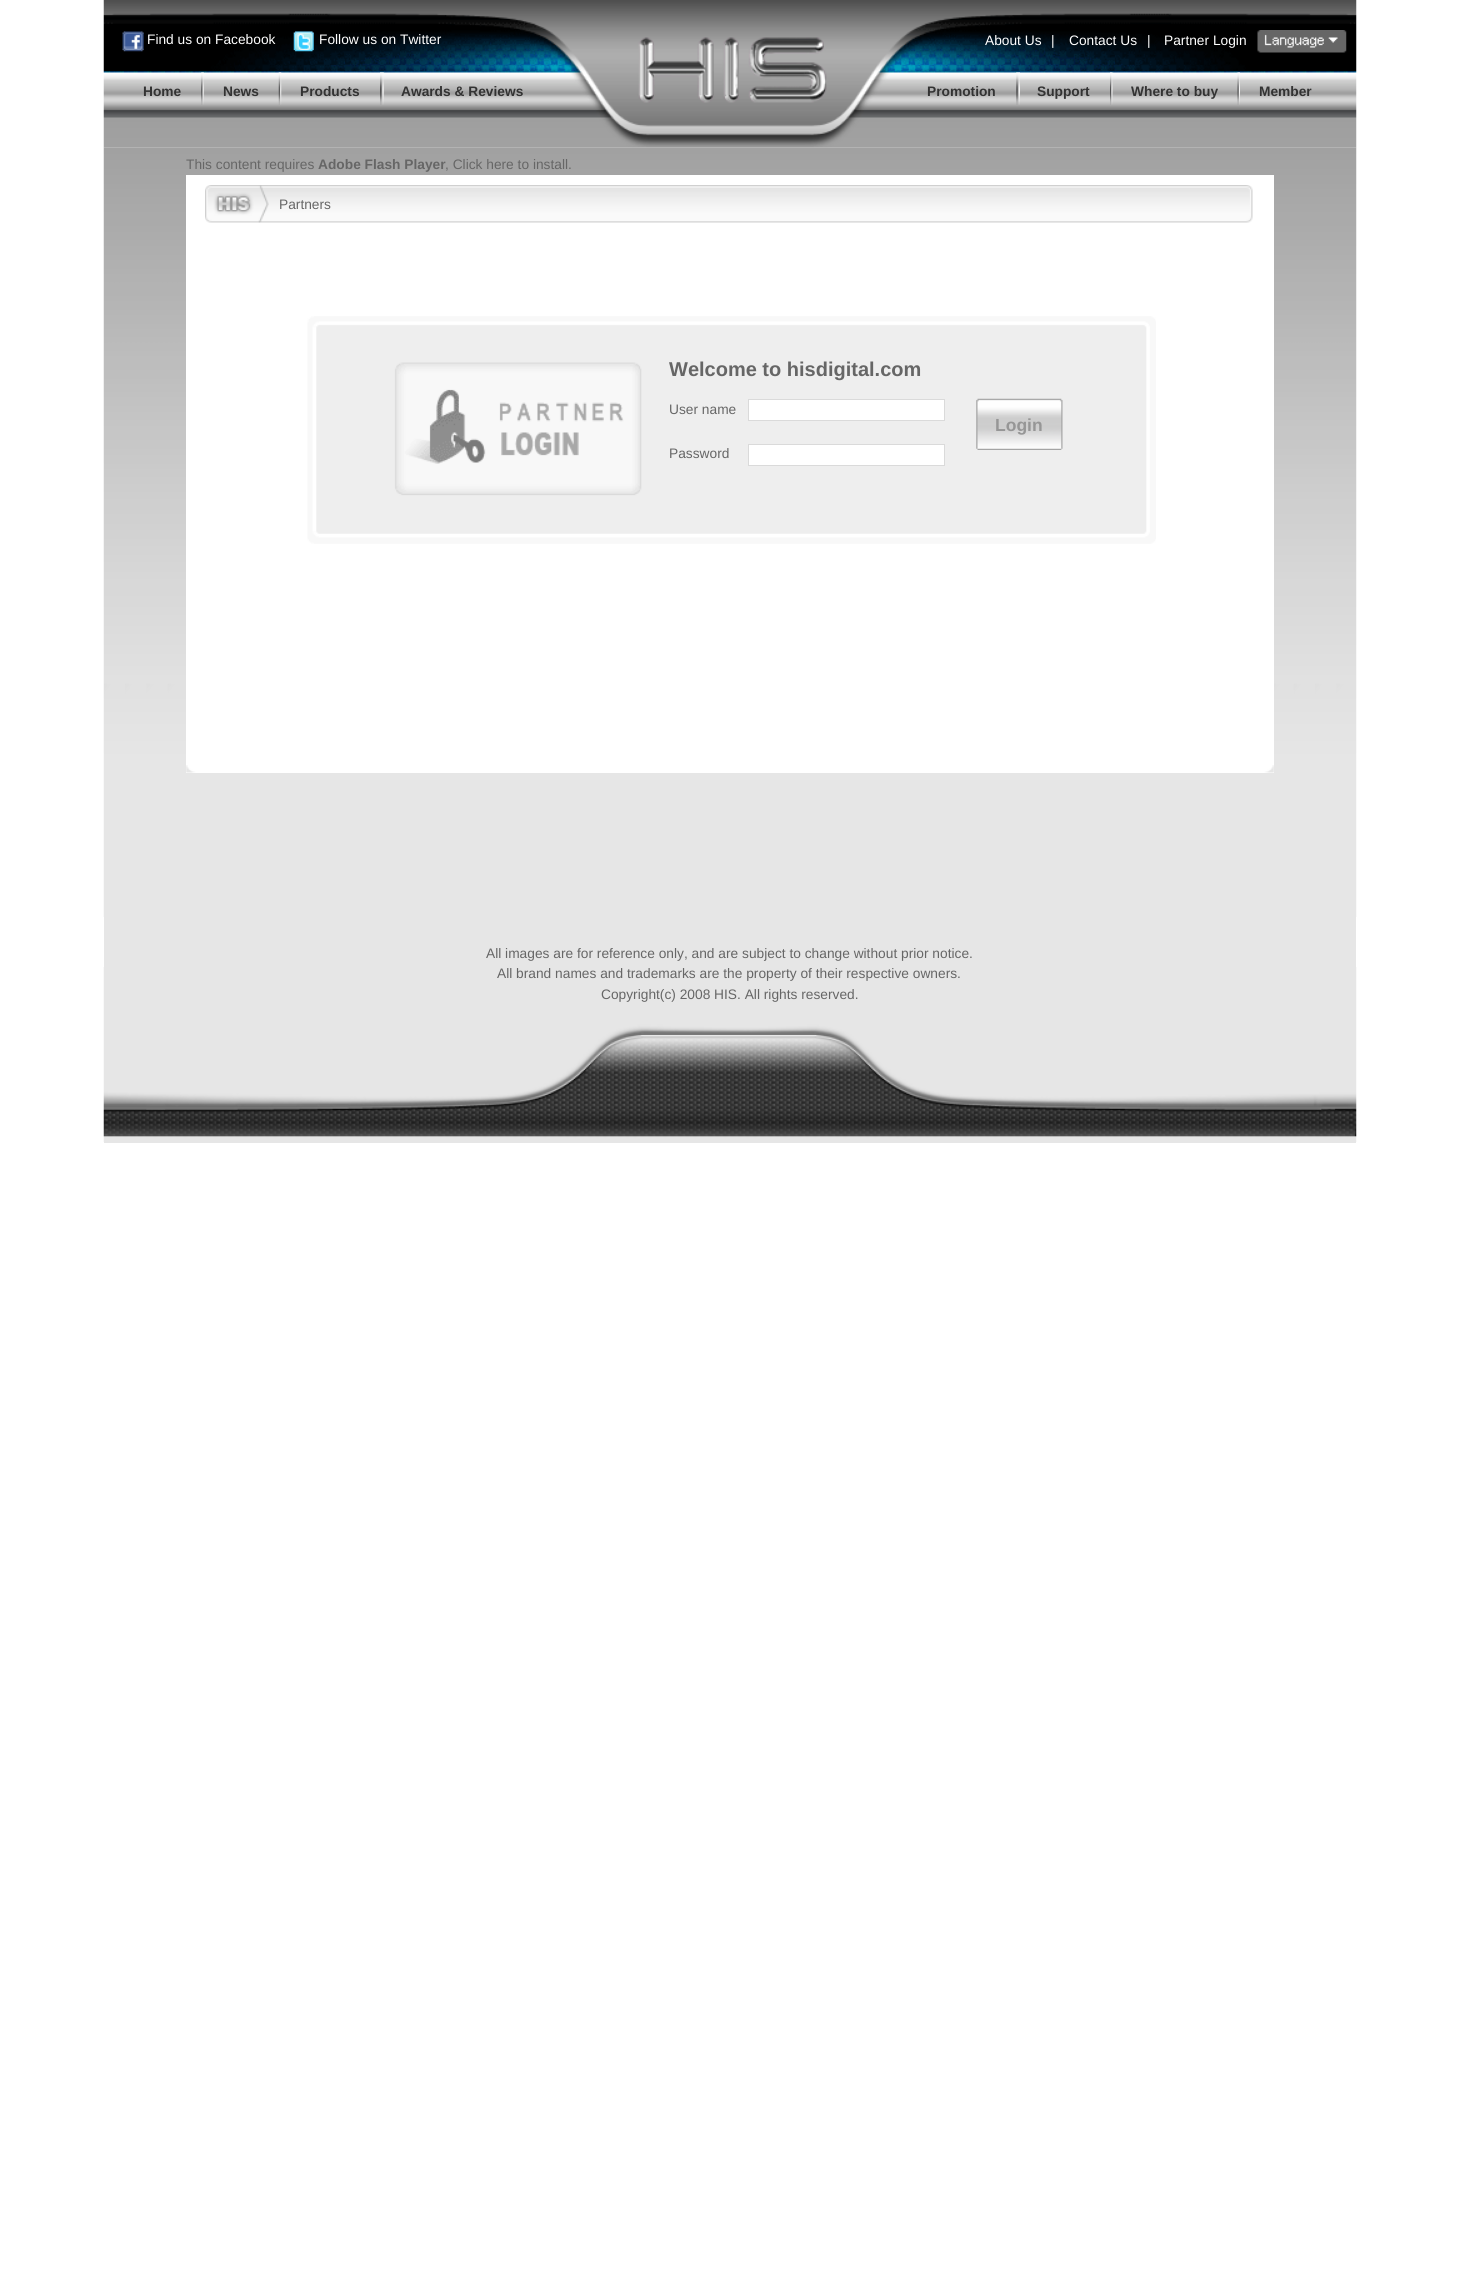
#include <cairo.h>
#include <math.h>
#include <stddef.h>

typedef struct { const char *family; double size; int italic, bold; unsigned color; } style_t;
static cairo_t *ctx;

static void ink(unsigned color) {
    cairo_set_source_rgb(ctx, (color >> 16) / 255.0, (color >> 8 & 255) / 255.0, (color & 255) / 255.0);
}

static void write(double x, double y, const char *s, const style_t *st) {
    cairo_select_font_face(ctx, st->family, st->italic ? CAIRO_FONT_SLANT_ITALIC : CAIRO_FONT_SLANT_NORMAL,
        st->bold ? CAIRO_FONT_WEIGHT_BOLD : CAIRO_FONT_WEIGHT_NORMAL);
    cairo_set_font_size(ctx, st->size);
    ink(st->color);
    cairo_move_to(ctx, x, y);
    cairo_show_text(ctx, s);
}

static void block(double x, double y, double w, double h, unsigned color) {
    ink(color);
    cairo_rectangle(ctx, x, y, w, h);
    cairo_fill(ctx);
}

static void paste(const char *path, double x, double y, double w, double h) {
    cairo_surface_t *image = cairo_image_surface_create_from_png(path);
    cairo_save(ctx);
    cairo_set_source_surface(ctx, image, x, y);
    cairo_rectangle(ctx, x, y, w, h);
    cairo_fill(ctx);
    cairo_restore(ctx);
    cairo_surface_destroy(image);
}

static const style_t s1 = {"Liberation Sans", 13.75, 0, 0, 0xffffff};
static const style_t s2 = {"Liberation Sans", 13.75, 0, 1, 0x333333};
static const style_t s3 = {"Liberation Sans", 13.75, 0, 0, 0x666666};
static const style_t s4 = {"Liberation Sans", 13.75, 0, 1, 0x666666};
static const style_t s5 = {"Liberation Sans", 20, 0, 1, 0x666666};
static const style_t s6 = {"Liberation Sans", 17.5, 0, 1, 0x969696};

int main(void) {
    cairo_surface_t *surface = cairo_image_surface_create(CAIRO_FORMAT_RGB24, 1458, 2283);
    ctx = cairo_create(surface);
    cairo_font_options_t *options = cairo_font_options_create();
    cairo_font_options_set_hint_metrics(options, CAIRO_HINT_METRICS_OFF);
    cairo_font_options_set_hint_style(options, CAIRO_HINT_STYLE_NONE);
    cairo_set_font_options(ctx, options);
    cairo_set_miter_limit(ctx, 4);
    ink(0xffffff);
    cairo_paint(ctx);
    block(104, 147, 1252, 996, 0xe6e6e6);
    paste("pic1.png", 103, 0, 1254, 148);
    paste("pic2.png", 122, 31, 22, 21);
    write(147, 44, "Find us on Facebook", &s1);
    paste("pic3.png", 293, 31, 21, 21);
    write(319, 44, "Follow us on Twitter", &s1);
    write(985, 45, "About Us", &s1);
    write(1051, 45, "|", &s1);
    write(1069, 45, "Contact Us", &s1);
    write(1147, 45, "|", &s1);
    write(1164, 45, "Partner Login", &s1);
    paste("pic4.png", 1257, 30, 90, 23);
    write(143, 96, "Home", &s2);
    paste("pic5.png", 201, 72, 3, 33);
    write(223, 96, "News", &s2);
    paste("pic6.png", 278, 72, 4, 33);
    write(300, 96, "Products", &s2);
    paste("pic7.png", 380, 72, 4, 33);
    write(401, 96, "Awards & Reviews", &s2);
    write(927, 96, "Promotion", &s2);
    paste("pic8.png", 1016, 72, 4, 33);
    write(1037, 96, "Support", &s2);
    paste("pic9.png", 1110, 72, 3, 33);
    write(1131, 96, "Where to buy", &s2);
    paste("pic10.png", 1237, 72, 3, 33);
    write(1259, 96, "Member", &s2);
    paste("pic11.png", 103, 147, 1254, 770);
    write(186, 169, "This content requires", &s3);
    write(318, 169, "Adobe Flash Player", &s4);
    write(445, 169, ", Click here to install.", &s3);
    block(186, 175, 1088, 598, 0xffffff);
    paste("pic12.png", 186, 765, 1088, 8);
    paste("pic13.png", 205, 185, 1048, 38);
    write(279, 209, "Partners", &s3);
    paste("pic14.png", 307, 316, 849, 228);
    write(669, 376, "Welcome to hisdigital.com", &s5);
    write(669, 414, "User name", &s3);
    ink(0xffffff);
    cairo_rectangle(ctx, 748.5, 399.5, 196, 21);
    cairo_fill_preserve(ctx);
    ink(0xdadada);
    cairo_set_line_width(ctx, 1);
    cairo_stroke(ctx);
    write(669, 458, "Password", &s3);
    ink(0xffffff);
    cairo_rectangle(ctx, 748.5, 444.5, 196, 21);
    cairo_fill_preserve(ctx);
    ink(0xdadada);
    cairo_stroke(ctx);
    paste("pic15.png", 976, 398, 87, 52);
    write(995, 431, "Login", &s6);
    paste("pic16.png", 103, 967, 1254, 175);
    write(486, 958, "All images are for reference only, and are subject to change without prior notice.", &s3);
    write(497, 978, "All brand names and trademarks are the property of their respective owners.", &s3);
    write(601, 999, "Copyright(c) 2008 HIS. All rights reserved.", &s3);
    cairo_surface_write_to_png(surface, "screenshot.png");
    cairo_font_options_destroy(options);
    cairo_destroy(ctx);
    cairo_surface_destroy(surface);
    return 0;
}
